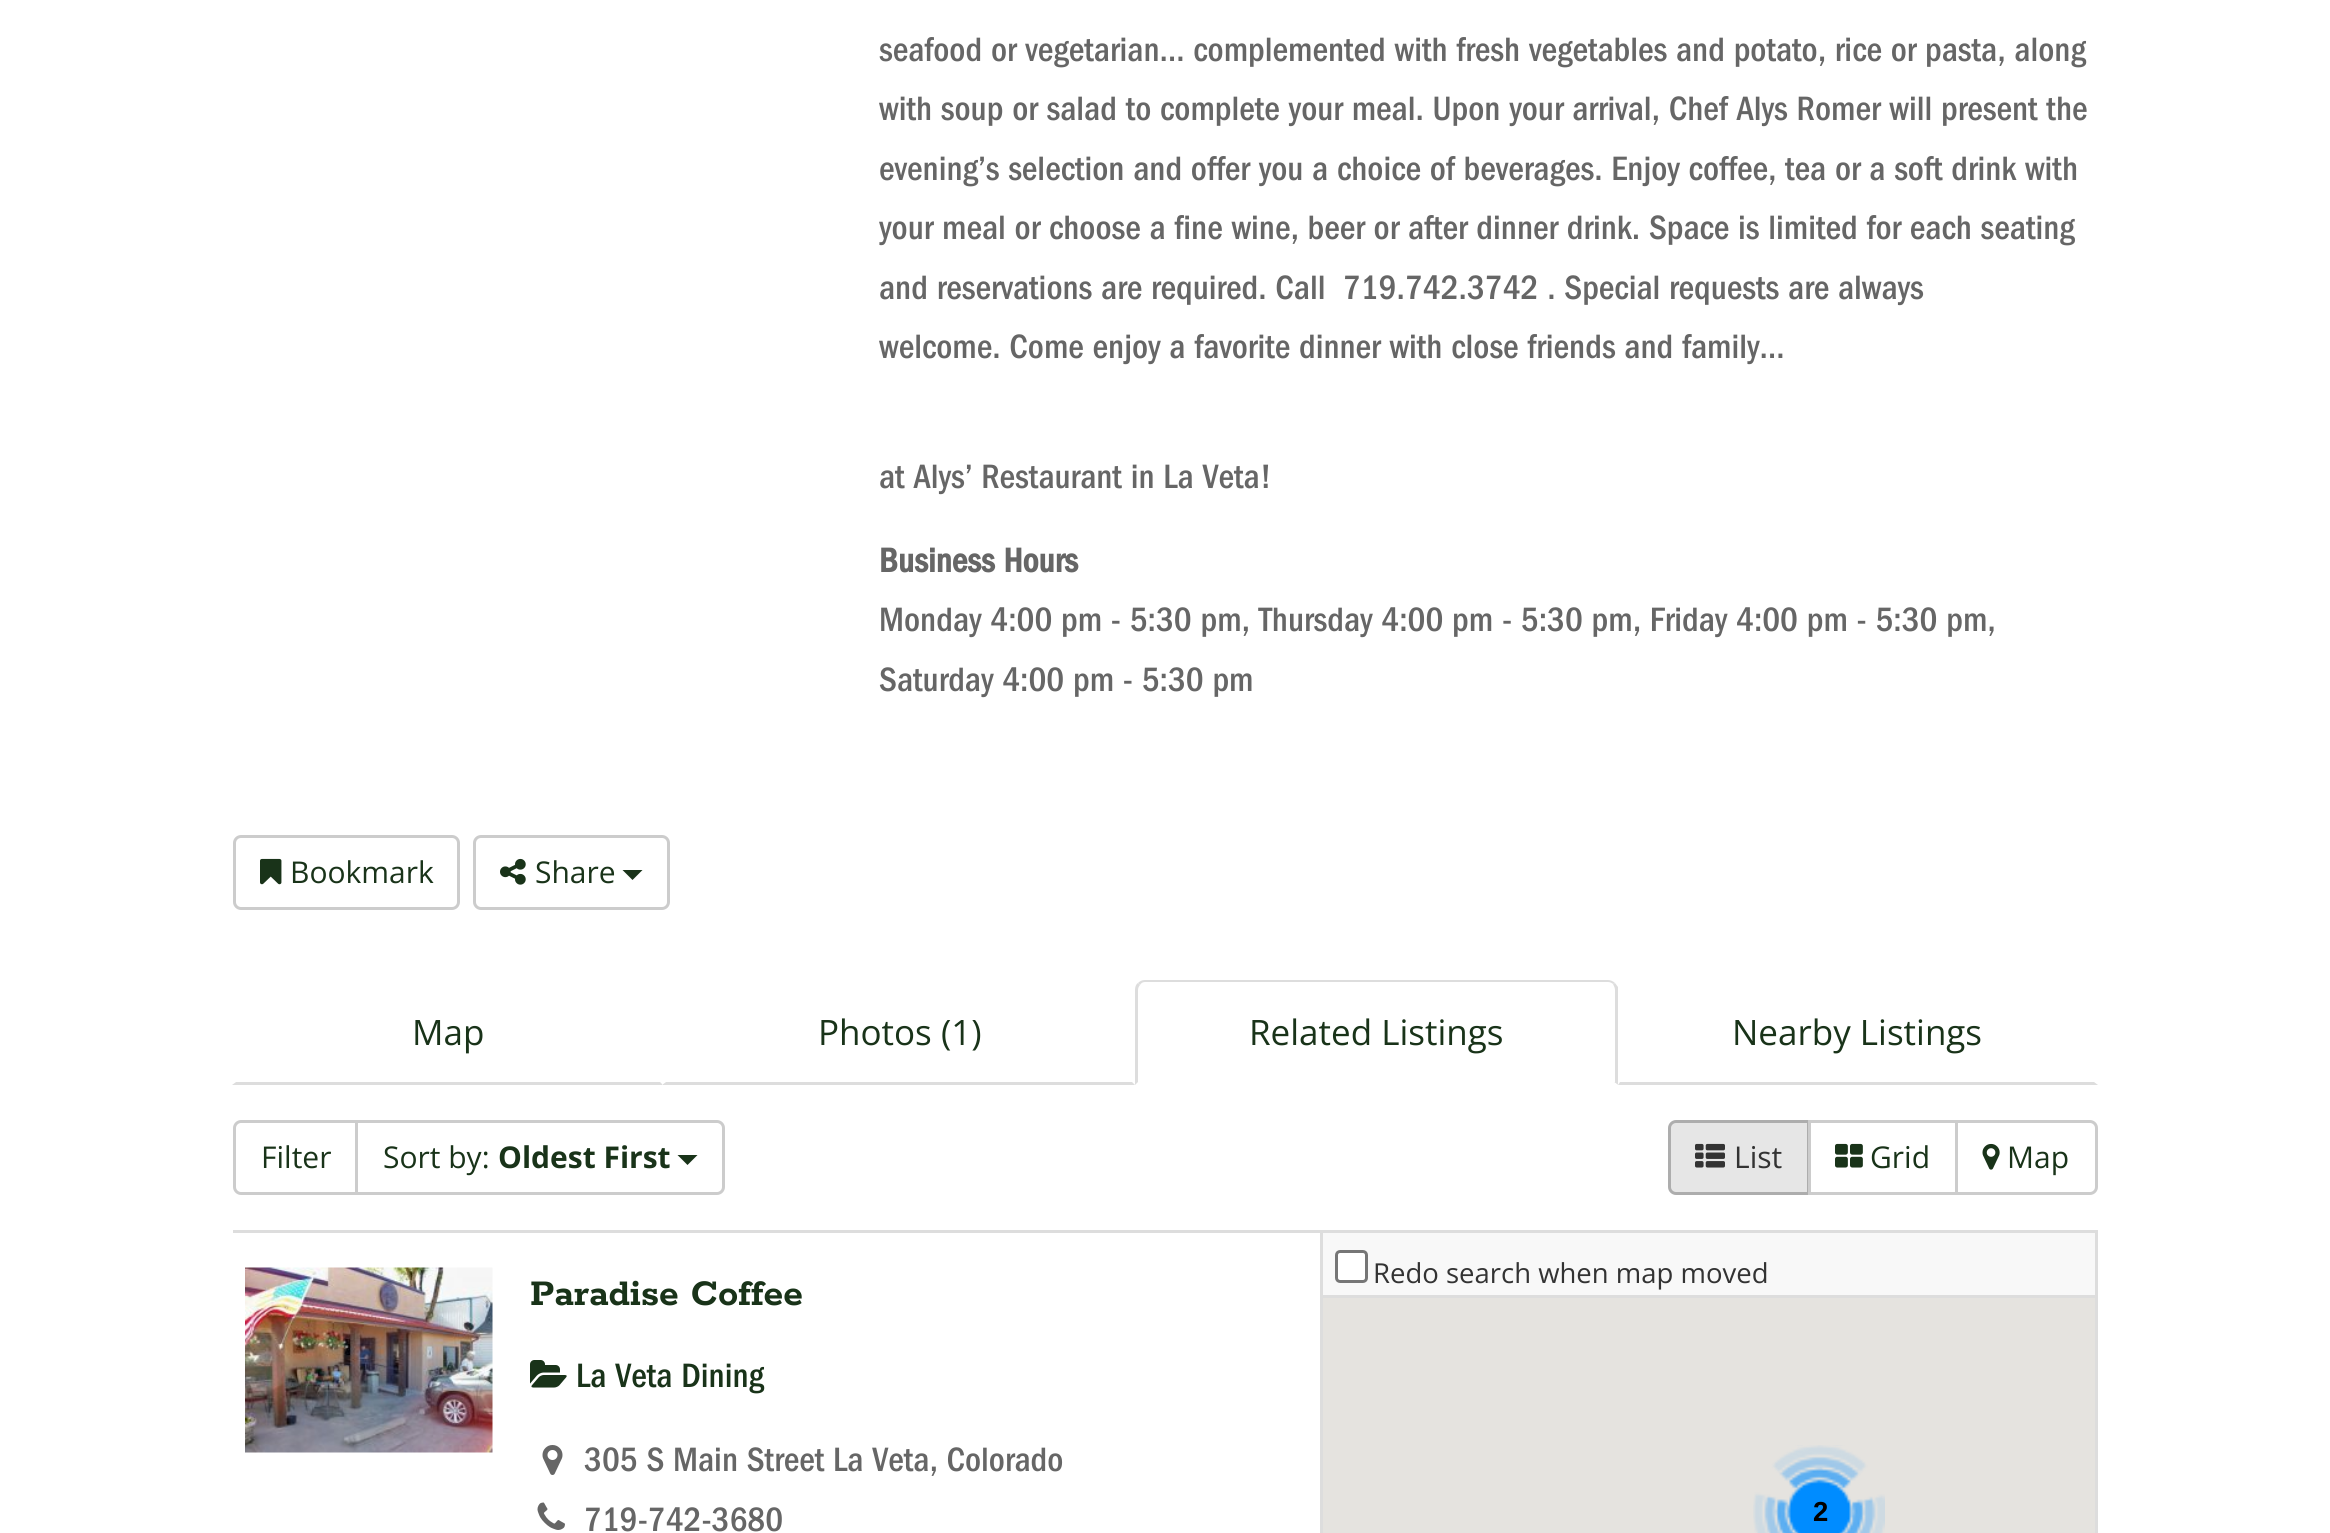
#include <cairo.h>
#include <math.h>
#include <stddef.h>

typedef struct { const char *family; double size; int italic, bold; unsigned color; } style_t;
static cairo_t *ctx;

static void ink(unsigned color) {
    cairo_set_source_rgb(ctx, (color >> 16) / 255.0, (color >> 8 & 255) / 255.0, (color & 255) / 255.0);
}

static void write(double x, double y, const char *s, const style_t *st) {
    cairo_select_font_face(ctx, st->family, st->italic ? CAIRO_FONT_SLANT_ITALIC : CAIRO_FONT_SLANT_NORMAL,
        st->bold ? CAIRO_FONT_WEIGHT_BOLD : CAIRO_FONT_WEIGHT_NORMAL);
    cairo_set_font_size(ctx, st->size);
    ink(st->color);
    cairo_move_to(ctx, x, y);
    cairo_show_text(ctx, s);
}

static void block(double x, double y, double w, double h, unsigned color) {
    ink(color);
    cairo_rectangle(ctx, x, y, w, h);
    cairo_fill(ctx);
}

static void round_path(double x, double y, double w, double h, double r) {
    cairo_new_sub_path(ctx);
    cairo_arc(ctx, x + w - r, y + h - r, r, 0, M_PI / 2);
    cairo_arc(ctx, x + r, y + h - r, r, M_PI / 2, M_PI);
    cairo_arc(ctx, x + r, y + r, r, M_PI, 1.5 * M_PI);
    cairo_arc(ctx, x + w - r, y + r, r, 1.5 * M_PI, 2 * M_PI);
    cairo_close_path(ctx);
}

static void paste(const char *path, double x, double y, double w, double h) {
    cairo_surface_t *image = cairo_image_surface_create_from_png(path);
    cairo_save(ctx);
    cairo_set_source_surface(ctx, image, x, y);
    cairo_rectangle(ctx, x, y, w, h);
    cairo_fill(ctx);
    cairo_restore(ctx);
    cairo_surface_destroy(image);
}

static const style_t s1 = {"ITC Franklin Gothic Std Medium", 35, 0, 0, 0x666666};
static const style_t s2 = {"ITC Franklin Gothic Std", 35, 0, 1, 0x666666};
static const style_t s3 = {"Open Sans", 30, 0, 0, 0x193319};
static const style_t s4 = {"Open Sans", 35, 0, 0, 0x193319};
static const style_t s5 = {"Open Sans", 30, 0, 1, 0x193319};
static const style_t s6 = {"Open Sans", 30, 0, 0, 0x333333};
static const style_t s7 = {"Rokkitt", 40.25, 0, 1, 0x193319};
static const style_t s8 = {"ITC Franklin Gothic Std Medium", 35, 0, 0, 0x193319};
static const style_t s9 = {"Open Sans", 27.5, 0, 0, 0x333333};
static const style_t s10 = {"Liberation Sans", 27.5, 0, 1, 0x000000};

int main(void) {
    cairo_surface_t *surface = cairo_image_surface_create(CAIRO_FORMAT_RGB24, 2330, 1533);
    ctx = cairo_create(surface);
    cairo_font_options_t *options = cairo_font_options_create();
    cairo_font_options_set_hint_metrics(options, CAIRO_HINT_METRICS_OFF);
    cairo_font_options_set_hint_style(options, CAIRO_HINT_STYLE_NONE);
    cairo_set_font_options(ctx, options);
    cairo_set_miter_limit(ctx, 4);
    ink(0xffffff);
    cairo_paint(ctx);
    write(879, 61, "seafood or vegetarian… complemented with fresh vegetables and potato, rice or pasta, along", &s1);
    write(879, 120, "with soup or salad to complete your meal. Upon your arrival, Chef Alys Romer will present the", &s1);
    write(879, 180, "evening’s selection and offer you a choice of beverages. Enjoy coffee, tea or a soft drink with", &s1);
    write(879, 239, "your meal or choose a fine wine, beer or after dinner drink. Space is limited for each seating", &s1);
    write(879, 299, "and reservations are required. Call  719.742.3742 . Special requests are always", &s1);
    write(879, 358, "welcome. Come enjoy a favorite dinner with close friends and family…", &s1);
    write(879, 488, "at Alys’ Restaurant in La Veta!", &s1);
    write(879, 572, "Business Hours", &s2);
    write(879, 631, "Monday 4:00 pm - 5:30 pm, Thursday 4:00 pm - 5:30 pm, Friday 4:00 pm - 5:30 pm,", &s1);
    write(879, 691, "Saturday 4:00 pm - 5:30 pm", &s1);
    round_path(234.5, 836.5, 224, 72, 6.5);
    ink(0xcccccc);
    cairo_set_line_width(ctx, 3);
    cairo_stroke(ctx);
    paste("pic1.png", 260, 858, 22, 27);
    write(290, 883, "Bookmark", &s3);
    round_path(474.5, 836.5, 194, 72, 6.5);
    ink(0xcccccc);
    cairo_stroke(ctx);
    paste("pic2.png", 500, 858, 26, 27);
    write(535, 883, "Share", &s3);
    cairo_new_path(ctx);
    cairo_move_to(ctx, 622.5, 870);
    cairo_line_to(ctx, 642.5, 870);
    cairo_line_to(ctx, 632.5, 880);
    cairo_close_path(ctx);
    cairo_fill(ctx);
    ink(0xdddddd);
    cairo_new_path(ctx);
    cairo_move_to(ctx, 232, 1085);
    cairo_line_to(ctx, 662, 1085);
    cairo_line_to(ctx, 662, 1084);
    cairo_line_to(ctx, 660, 1082);
    cairo_line_to(ctx, 236, 1082);
    cairo_close_path(ctx);
    cairo_fill(ctx);
    write(412, 1045, "Map", &s4);
    ink(0xdddddd);
    cairo_new_path(ctx);
    cairo_move_to(ctx, 1135, 1085);
    cairo_line_to(ctx, 1132, 1082);
    cairo_line_to(ctx, 666, 1082);
    cairo_line_to(ctx, 662, 1085);
    cairo_close_path(ctx);
    cairo_fill(ctx);
    write(818, 1045, "Photos (1)", &s4);
    ink(0xdddddd);
    cairo_new_path(ctx);
    cairo_move_to(ctx, 1145, 980);
    cairo_curve_to(ctx, 1142, 980, 1140, 981, 1138, 983);
    cairo_line_to(ctx, 1140, 985);
    cairo_curve_to(ctx, 1141, 983, 1143, 982, 1145, 982);
    cairo_line_to(ctx, 1608, 982);
    cairo_curve_to(ctx, 1610, 982, 1612, 983, 1613, 984);
    cairo_line_to(ctx, 1615, 983);
    cairo_curve_to(ctx, 1613, 981, 1610, 980, 1608, 980);
    cairo_close_path(ctx);
    cairo_fill(ctx);
    cairo_new_path(ctx);
    cairo_move_to(ctx, 1618, 987);
    cairo_line_to(ctx, 1618, 1085);
    cairo_line_to(ctx, 1614, 1082);
    cairo_line_to(ctx, 1615, 1082);
    cairo_line_to(ctx, 1615, 990);
    cairo_curve_to(ctx, 1615, 988, 1614, 986, 1613, 984);
    cairo_line_to(ctx, 1615, 983);
    cairo_close_path(ctx);
    cairo_fill(ctx);
    ink(0xffffff);
    cairo_new_path(ctx);
    cairo_move_to(ctx, 1618, 1085);
    cairo_line_to(ctx, 1614, 1082);
    cairo_line_to(ctx, 1138, 1082);
    cairo_line_to(ctx, 1135, 1085);
    cairo_close_path(ctx);
    cairo_fill(ctx);
    ink(0xdddddd);
    cairo_new_path(ctx);
    cairo_move_to(ctx, 1135, 1085);
    cairo_line_to(ctx, 1138, 1082);
    cairo_line_to(ctx, 1138, 990);
    cairo_curve_to(ctx, 1138, 988, 1139, 986, 1140, 985);
    cairo_line_to(ctx, 1138, 983);
    cairo_curve_to(ctx, 1136, 984, 1135, 987, 1135, 990);
    cairo_close_path(ctx);
    cairo_fill(ctx);
    write(1249, 1045, "Related Listings", &s4);
    ink(0xdddddd);
    cairo_new_path(ctx);
    cairo_move_to(ctx, 2098, 1085);
    cairo_line_to(ctx, 2094, 1082);
    cairo_line_to(ctx, 1620, 1082);
    cairo_line_to(ctx, 1618, 1085);
    cairo_close_path(ctx);
    cairo_fill(ctx);
    write(1732, 1045, "Nearby Listings", &s4);
    block(233, 1230, 1865, 3, 0xdddddd);
    cairo_new_path(ctx);
    cairo_move_to(ctx, 241, 1121.5);
    cairo_line_to(ctx, 356.5, 1121.5);
    cairo_line_to(ctx, 356.5, 1193.5);
    cairo_line_to(ctx, 241, 1193.5);
    cairo_curve_to(ctx, 237.5, 1193.5, 234.5, 1190.5, 234.5, 1187);
    cairo_line_to(ctx, 234.5, 1128);
    cairo_curve_to(ctx, 234.5, 1124.5, 237.5, 1121.5, 241, 1121.5);
    cairo_close_path(ctx);
    ink(0xcccccc);
    cairo_stroke(ctx);
    write(261, 1168, "Filter", &s3);
    ink(0xffffff);
    cairo_new_path(ctx);
    cairo_move_to(ctx, 356.5, 1121.5);
    cairo_line_to(ctx, 717, 1121.5);
    cairo_curve_to(ctx, 720.5, 1121.5, 723.5, 1124.5, 723.5, 1128);
    cairo_line_to(ctx, 723.5, 1187);
    cairo_curve_to(ctx, 723.5, 1190.5, 720.5, 1193.5, 717, 1193.5);
    cairo_line_to(ctx, 356.5, 1193.5);
    cairo_close_path(ctx);
    cairo_fill_preserve(ctx);
    ink(0xcccccc);
    cairo_stroke(ctx);
    write(383, 1168, "Sort by:", &s3);
    write(498, 1168, "Oldest First", &s5);
    cairo_new_path(ctx);
    cairo_move_to(ctx, 677.5, 1155);
    cairo_line_to(ctx, 697.5, 1155);
    cairo_line_to(ctx, 687.5, 1165);
    cairo_close_path(ctx);
    cairo_fill(ctx);
    ink(0xe6e6e6);
    cairo_new_path(ctx);
    cairo_move_to(ctx, 1676, 1121.5);
    cairo_line_to(ctx, 1808.5, 1121.5);
    cairo_line_to(ctx, 1808.5, 1193.5);
    cairo_line_to(ctx, 1676, 1193.5);
    cairo_curve_to(ctx, 1672.5, 1193.5, 1669.5, 1190.5, 1669.5, 1187);
    cairo_line_to(ctx, 1669.5, 1128);
    cairo_curve_to(ctx, 1669.5, 1124.5, 1672.5, 1121.5, 1676, 1121.5);
    cairo_close_path(ctx);
    cairo_fill_preserve(ctx);
    ink(0xadadad);
    cairo_stroke(ctx);
    paste("pic3.png", 1695, 1143, 30, 25);
    write(1734, 1168, "List", &s6);
    cairo_rectangle(ctx, 1809.5, 1121.5, 147, 72);
    ink(0xcccccc);
    cairo_stroke(ctx);
    paste("pic4.png", 1835, 1143, 28, 25);
    write(1870, 1168, "Grid", &s3);
    ink(0xffffff);
    cairo_new_path(ctx);
    cairo_move_to(ctx, 1956.5, 1121.5);
    cairo_line_to(ctx, 2090, 1121.5);
    cairo_curve_to(ctx, 2093.5, 1121.5, 2096.5, 1124.5, 2096.5, 1128);
    cairo_line_to(ctx, 2096.5, 1187);
    cairo_curve_to(ctx, 2096.5, 1190.5, 2093.5, 1193.5, 2090, 1193.5);
    cairo_line_to(ctx, 1956.5, 1193.5);
    cairo_close_path(ctx);
    cairo_fill_preserve(ctx);
    ink(0xcccccc);
    cairo_stroke(ctx);
    paste("pic5.png", 1982, 1143, 18, 27);
    write(2007, 1168, "Map", &s3);
    paste("pic6.png", 245, 1267, 248, 186);
    write(530, 1305, "Paradise Coffee", &s7);
    paste("pic7.png", 530, 1360, 37, 28);
    write(576, 1387, "La Veta Dining", &s8);
    paste("pic8.png", 542, 1445, 21, 30);
    write(584, 1471, "305 S Main Street La Veta, Colorado", &s1);
    paste("pic9.png", 537, 1502, 28, 28);
    write(584, 1531, "719-742-3680", &s1);
    block(1323, 1233, 772, 62, 0xf8f8f8);
    block(2095, 1230, 3, 65, 0xdddddd);
    block(1320, 1230, 3, 65, 0xdddddd);
    ink(0xffffff);
    round_path(1336.5, 1251.5, 30, 30, 3.5);
    cairo_fill_preserve(ctx);
    ink(0x767676);
    cairo_stroke(ctx);
    write(1373, 1283, "Redo search when map moved", &s9);
    cairo_rectangle(ctx, 1321.5, 1296.5, 775, 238);
    ink(0xdddddd);
    cairo_stroke(ctx);
    block(1323, 1298, 772, 235, 0xe5e3df);
    paste("pic10.png", 1753, 1445, 132, 88);
    write(1813, 1521, "2", &s10);
    cairo_surface_write_to_png(surface, "screenshot.png");
    cairo_font_options_destroy(options);
    cairo_destroy(ctx);
    cairo_surface_destroy(surface);
    return 0;
}
